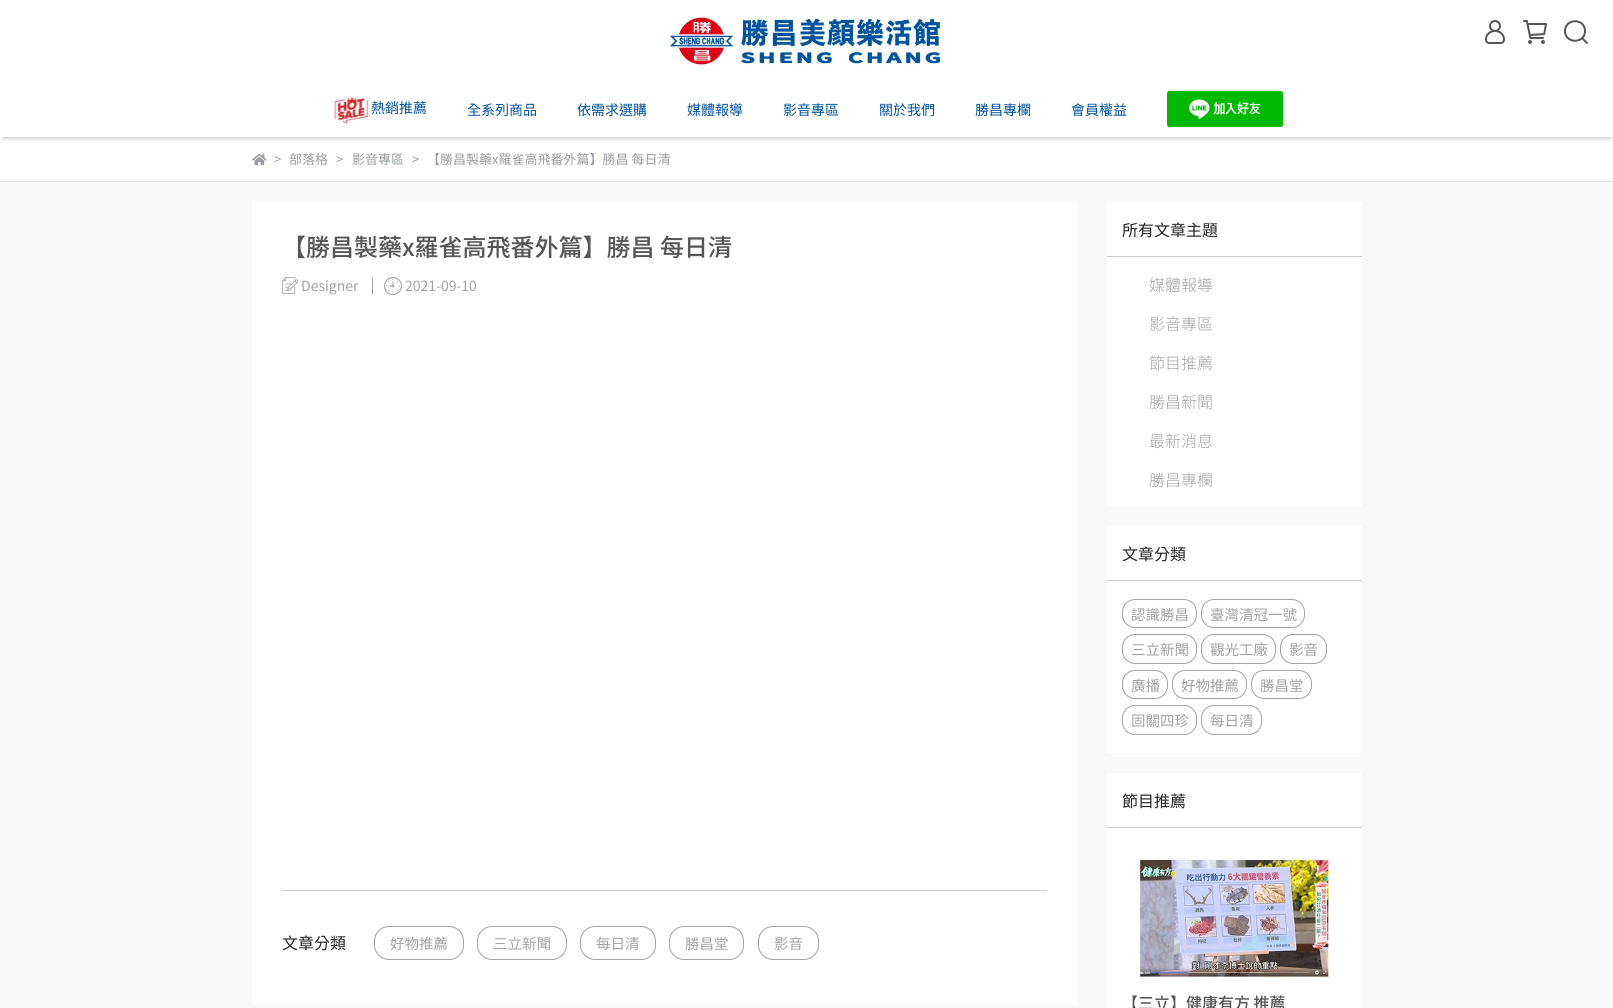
#include <cairo.h>
#include <math.h>
#include <stddef.h>

typedef struct { const char *family; double size; int italic, bold; unsigned color; } style_t;
static cairo_t *ctx;

static void ink(unsigned color) {
    cairo_set_source_rgb(ctx, (color >> 16) / 255.0, (color >> 8 & 255) / 255.0, (color & 255) / 255.0);
}

static void write(double x, double y, const char *s, const style_t *st) {
    cairo_select_font_face(ctx, st->family, st->italic ? CAIRO_FONT_SLANT_ITALIC : CAIRO_FONT_SLANT_NORMAL,
        st->bold ? CAIRO_FONT_WEIGHT_BOLD : CAIRO_FONT_WEIGHT_NORMAL);
    cairo_set_font_size(ctx, st->size);
    ink(st->color);
    cairo_move_to(ctx, x, y);
    cairo_show_text(ctx, s);
}

static void block(double x, double y, double w, double h, unsigned color) {
    ink(color);
    cairo_rectangle(ctx, x, y, w, h);
    cairo_fill(ctx);
}

static void round_path(double x, double y, double w, double h, double r) {
    cairo_new_sub_path(ctx);
    cairo_arc(ctx, x + w - r, y + h - r, r, 0, M_PI / 2);
    cairo_arc(ctx, x + r, y + h - r, r, M_PI / 2, M_PI);
    cairo_arc(ctx, x + r, y + r, r, M_PI, 1.5 * M_PI);
    cairo_arc(ctx, x + w - r, y + r, r, 1.5 * M_PI, 2 * M_PI);
    cairo_close_path(ctx);
}

static void blur_box(double x, double y, double w, double h, double r, double blur, double alpha) {
    cairo_push_group_with_content(ctx, CAIRO_CONTENT_ALPHA);
    cairo_set_operator(ctx, CAIRO_OPERATOR_SOURCE);
    for (int i = 15; i >= -15 && fmin(w, h) + blur * i / 3 > 0; i -= 2) {
        double e = blur * i / 6;
        cairo_set_source_rgba(ctx, 0, 0, 0, alpha * erfc((i - 1) / 8.5) / 2);
        round_path(x - e, y - e, w + 2 * e, h + 2 * e, fmax(0, fmin(r + e + blur * .6, fmin(w, h) / 2 + e)));
        cairo_fill(ctx);
    }
    cairo_pattern_t *soft = cairo_pop_group(ctx);
    cairo_mask(ctx, soft);
    cairo_pattern_destroy(soft);
}

static void paste(const char *path, double x, double y, double w, double h) {
    cairo_surface_t *image = cairo_image_surface_create_from_png(path);
    cairo_save(ctx);
    cairo_set_source_surface(ctx, image, x, y);
    cairo_rectangle(ctx, x, y, w, h);
    cairo_fill(ctx);
    cairo_restore(ctx);
    cairo_surface_destroy(image);
}

static const style_t s1 = {"Noto Sans TC", 14, 0, 0, 0x0053a2};
static const style_t s2 = {"Noto Sans TC", 13, 0, 0, 0x9a9ea2};
static const style_t s3 = {"Noto Sans TC Medium", 24, 0, 0, 0x565656};
static const style_t s4 = {"Noto Sans TC", 14, 0, 0, 0xa3a3a3};
static const style_t s5 = {"Noto Sans TC", 16, 0, 0, 0x212529};
static const style_t s6 = {"Noto Sans TC", 14.5, 0, 0, 0xa3a3a3};
static const style_t s7 = {"Noto Sans TC Light", 16, 0, 0, 0xa3a3a3};
static const style_t s8 = {"Noto Sans TC Medium", 16, 0, 0, 0x565656};

int main(void) {
    cairo_surface_t *surface = cairo_image_surface_create(CAIRO_FORMAT_RGB24, 1613, 1008);
    ctx = cairo_create(surface);
    cairo_font_options_t *options = cairo_font_options_create();
    cairo_font_options_set_hint_metrics(options, CAIRO_HINT_METRICS_OFF);
    cairo_font_options_set_hint_style(options, CAIRO_HINT_STYLE_NONE);
    cairo_set_font_options(ctx, options);
    cairo_set_miter_limit(ctx, 4);
    ink(0xffffff);
    cairo_paint(ctx);
    paste("pic1.png", 669, 15, 274, 50);
    paste("pic2.png", 1485, 20, 20, 24);
    paste("pic3.png", 1523, 20, 24, 24);
    cairo_new_path(ctx);
    cairo_move_to(ctx, 1585, 31);
    cairo_curve_to(ctx, 1585, 44, 1565, 44, 1565, 31);
    cairo_curve_to(ctx, 1565, 18, 1585, 18, 1585, 31);
    cairo_close_path(ctx);
    cairo_move_to(ctx, 1583, 39);
    cairo_line_to(ctx, 1587, 43);
    ink(0x565656);
    cairo_set_line_cap(ctx, CAIRO_LINE_CAP_ROUND);
    cairo_set_line_join(ctx, CAIRO_LINE_JOIN_ROUND);
    cairo_stroke(ctx);
    cairo_save(ctx);
    cairo_rectangle(ctx, 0, 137, 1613, 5);
    cairo_clip(ctx);
    ink(0x000000);
    blur_box(2, 87, 1609, 52, 0, 2, 0.2);
    cairo_restore(ctx);
    paste("pic4.png", 334, 97, 35, 27);
    write(371, 113, "熱銷推薦", &s1);
    write(467, 115, "全系列商品", &s1);
    write(577, 115, "依需求選購", &s1);
    write(687, 115, "媒體報導", &s1);
    write(783, 115, "影音專區", &s1);
    write(879, 115, "關於我們", &s1);
    write(975, 115, "勝昌專欄", &s1);
    write(1071, 115, "會員權益", &s1);
    paste("pic5.png", 1167, 91, 116, 36);
    block(0, 181, 1613, 1, 0xe2e2e2);
    paste("pic6.png", 252, 153, 15, 13);
    write(274, 164, ">", &s2);
    write(289, 164, "部落格", &s2);
    write(336, 164, ">", &s2);
    write(352, 164, "影音專區", &s2);
    write(412, 164, ">", &s2);
    write(427, 164, "【勝昌製藥x羅雀高飛番外篇】勝昌 每日清", &s2);
    block(0, 182, 1613, 826, 0xf9f9f9);
    block(252, 202, 825, 803, 0xffffff);
    write(282, 256, "【勝昌製藥x羅雀高飛番外篇】勝昌 每日清", &s3);
    paste("pic7.png", 282, 277, 16, 17);
    write(301, 291, "Designer", &s4);
    block(372, 278, 1, 16, 0xa3a3a3);
    paste("pic8.png", 384, 277, 18, 18);
    write(405, 291, "2021-09-10", &s4);
    block(282, 890, 765, 1, 0xcccccc);
    write(282, 949, "文章分類", &s5);
    round_path(374.5, 926.5, 89, 33, 14.5);
    ink(0xa3a3a3);
    cairo_set_line_width(ctx, 1);
    cairo_set_line_cap(ctx, CAIRO_LINE_CAP_BUTT);
    cairo_set_line_join(ctx, CAIRO_LINE_JOIN_MITER);
    cairo_stroke(ctx);
    write(390, 949, "好物推薦", &s6);
    round_path(477.5, 926.5, 89, 33, 14.5);
    cairo_stroke(ctx);
    write(493, 949, "三立新聞", &s6);
    round_path(580.5, 926.5, 75, 33, 14.5);
    cairo_stroke(ctx);
    write(596, 949, "每日清", &s6);
    round_path(669.5, 926.5, 74, 33, 14.5);
    cairo_stroke(ctx);
    write(685, 949, "勝昌堂", &s6);
    round_path(758.5, 926.5, 60, 33, 14.5);
    cairo_stroke(ctx);
    write(774, 949, "影音", &s6);
    block(1107, 202, 255, 304, 0xffffff);
    block(1107, 256, 255, 1, 0xcccccc);
    write(1122, 236, "所有文章主題", &s5);
    write(1149, 291, "媒體報導", &s7);
    write(1149, 330, "影音專區", &s7);
    write(1149, 369, "節目推薦", &s7);
    write(1149, 408, "勝昌新聞", &s7);
    write(1149, 447, "最新消息", &s7);
    write(1149, 486, "勝昌專欄", &s7);
    block(1107, 526, 255, 227, 0xffffff);
    block(1107, 580, 255, 1, 0xcccccc);
    write(1122, 560, "文章分類", &s5);
    round_path(1122.5, 599.5, 74, 28, 12.5);
    ink(0xa3a3a3);
    cairo_stroke(ctx);
    write(1131, 620, "認識勝昌", &s6);
    round_path(1201.5, 599.5, 103, 28, 12.5);
    cairo_stroke(ctx);
    write(1210, 620, "臺灣清冠一號", &s6);
    round_path(1122.5, 634.5, 74, 29, 12.5);
    cairo_stroke(ctx);
    write(1131, 655, "三立新聞", &s6);
    round_path(1201.5, 634.5, 74, 29, 12.5);
    cairo_stroke(ctx);
    write(1210, 655, "觀光工廠", &s6);
    round_path(1280.5, 634.5, 46, 29, 12.5);
    cairo_stroke(ctx);
    write(1289, 655, "影音", &s6);
    round_path(1122.5, 670.5, 45, 28, 12.5);
    cairo_stroke(ctx);
    write(1131, 691, "廣播", &s6);
    round_path(1172.5, 670.5, 74, 28, 12.5);
    cairo_stroke(ctx);
    write(1181, 691, "好物推薦", &s6);
    round_path(1251.5, 670.5, 60, 28, 12.5);
    cairo_stroke(ctx);
    write(1260, 691, "勝昌堂", &s6);
    round_path(1122.5, 705.5, 74, 29, 12.5);
    cairo_stroke(ctx);
    write(1131, 726, "固關四珍", &s6);
    round_path(1201.5, 705.5, 60, 29, 12.5);
    cairo_stroke(ctx);
    write(1210, 726, "每日清", &s6);
    block(1107, 773, 255, 235, 0xffffff);
    block(1107, 827, 255, 1, 0xcccccc);
    write(1122, 807, "節目推薦", &s5);
    paste("pic9.png", 1139, 858, 191, 120);
    write(1122, 1009, "【三立】健康有方 推薦", &s8);
    cairo_surface_write_to_png(surface, "screenshot.png");
    cairo_font_options_destroy(options);
    cairo_destroy(ctx);
    cairo_surface_destroy(surface);
    return 0;
}
